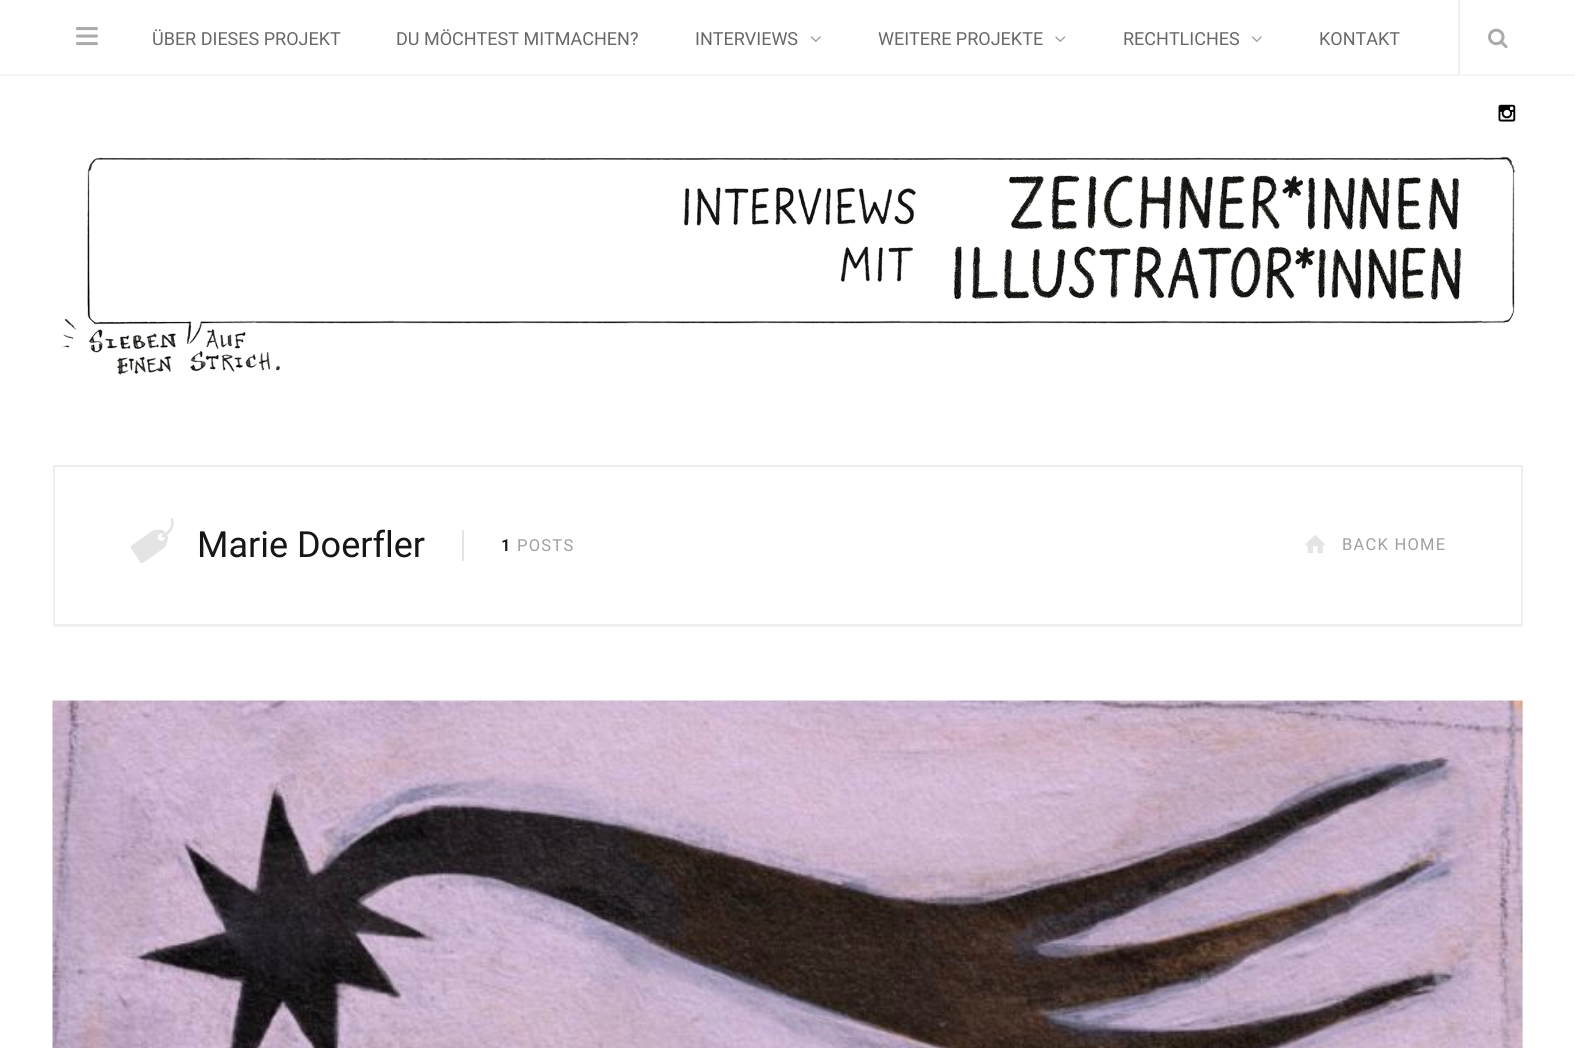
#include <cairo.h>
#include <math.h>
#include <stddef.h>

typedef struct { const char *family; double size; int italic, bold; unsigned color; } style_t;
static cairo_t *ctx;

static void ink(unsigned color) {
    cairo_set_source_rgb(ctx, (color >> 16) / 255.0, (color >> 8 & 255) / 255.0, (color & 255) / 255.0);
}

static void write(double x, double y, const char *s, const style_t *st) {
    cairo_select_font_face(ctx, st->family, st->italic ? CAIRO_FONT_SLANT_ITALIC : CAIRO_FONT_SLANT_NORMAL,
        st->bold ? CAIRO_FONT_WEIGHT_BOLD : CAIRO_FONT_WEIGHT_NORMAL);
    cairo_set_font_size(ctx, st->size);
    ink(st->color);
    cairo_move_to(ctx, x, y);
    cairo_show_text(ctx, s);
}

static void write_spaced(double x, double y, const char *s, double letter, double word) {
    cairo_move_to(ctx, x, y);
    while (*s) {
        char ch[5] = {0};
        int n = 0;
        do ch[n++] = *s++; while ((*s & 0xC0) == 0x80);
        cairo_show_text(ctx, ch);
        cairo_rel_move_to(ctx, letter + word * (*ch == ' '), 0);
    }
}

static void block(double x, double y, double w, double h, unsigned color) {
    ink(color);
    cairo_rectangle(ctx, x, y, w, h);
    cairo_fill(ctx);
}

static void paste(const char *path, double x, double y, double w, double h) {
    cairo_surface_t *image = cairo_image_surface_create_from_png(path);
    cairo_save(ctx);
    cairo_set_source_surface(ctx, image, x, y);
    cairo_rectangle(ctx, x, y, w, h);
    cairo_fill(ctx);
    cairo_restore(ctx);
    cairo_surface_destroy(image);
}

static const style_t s1 = {"Roboto", 18, 0, 0, 0x686868};
static const style_t s2 = {"Roboto", 36, 0, 0, 0x161616};

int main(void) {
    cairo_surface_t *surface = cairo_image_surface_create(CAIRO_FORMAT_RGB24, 1575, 1048);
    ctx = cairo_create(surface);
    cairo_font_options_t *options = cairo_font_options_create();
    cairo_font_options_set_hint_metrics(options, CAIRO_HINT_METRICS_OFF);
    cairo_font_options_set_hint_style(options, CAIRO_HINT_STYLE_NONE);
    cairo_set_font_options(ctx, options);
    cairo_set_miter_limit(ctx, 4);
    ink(0xffffff);
    cairo_paint(ctx);
    cairo_set_source_rgba(ctx, 0.933, 0.933, 0.933, 0.6);
    cairo_rectangle(ctx, 0, 74, 1575, 2);
    cairo_fill(ctx);
    paste("pic1.png", 76, 27, 22, 19);
    write(152, 45, "ÜBER DIESES PROJEKT", &s1);
    write(396, 45, "DU MÖCHTEST MITMACHEN?", &s1);
    write(695, 45, "INTERVIEWS", &s1);
    paste("pic2.png", 810, 36, 11, 6);
    write(878, 45, "WEITERE PROJEKTE", &s1);
    paste("pic3.png", 1055, 36, 11, 6);
    write(1123, 45, "RECHTLICHES", &s1);
    paste("pic2.png", 1251, 36, 11, 6);
    write(1319, 45, "KONTAKT", &s1);
    block(1458, 0, 2, 75, 0xefefef);
    paste("pic4.png", 1488, 28, 20, 21);
    paste("pic5.png", 1498, 104, 18, 18);
    paste("pic6.png", 61, 156, 1455, 219);
    ink(0xf5f5f5);
    cairo_new_path(ctx);
    cairo_move_to(ctx, 53, 626);
    cairo_line_to(ctx, 53, 627);
    cairo_line_to(ctx, 1523, 627);
    cairo_line_to(ctx, 1523, 467);
    cairo_line_to(ctx, 1522, 467);
    cairo_line_to(ctx, 1522, 626);
    cairo_close_path(ctx);
    cairo_fill(ctx);
    cairo_rectangle(ctx, 54, 466, 1468, 159);
    ink(0xefefef);
    cairo_stroke(ctx);
    paste("pic7.png", 130, 518, 44, 46);
    write(197, 557, "Marie Doerfler", &s2);
    block(462, 530, 2, 31, 0xe4e4e4);
    cairo_select_font_face(ctx, "Roboto SemiBold", CAIRO_FONT_SLANT_NORMAL, CAIRO_FONT_WEIGHT_NORMAL);
    cairo_set_font_size(ctx, 16.5);
    ink(0x161616);
    write_spaced(501, 551, "1", 1.25, 0);
    cairo_select_font_face(ctx, "Roboto", CAIRO_FONT_SLANT_NORMAL, CAIRO_FONT_WEIGHT_NORMAL);
    ink(0xa0a0a0);
    write_spaced(517, 551, "POSTS", 1.25, 0);
    paste("pic8.png", 1305, 535, 20, 19);
    write_spaced(1342, 550, "BACK HOME", 1.25, 0);
    cairo_rectangle(ctx, 54, 702, 1468, 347);
    ink(0xefefef);
    cairo_stroke(ctx);
    paste("pic9.png", 52, 700, 1471, 348);
    cairo_surface_write_to_png(surface, "screenshot.png");
    cairo_font_options_destroy(options);
    cairo_destroy(ctx);
    cairo_surface_destroy(surface);
    return 0;
}
